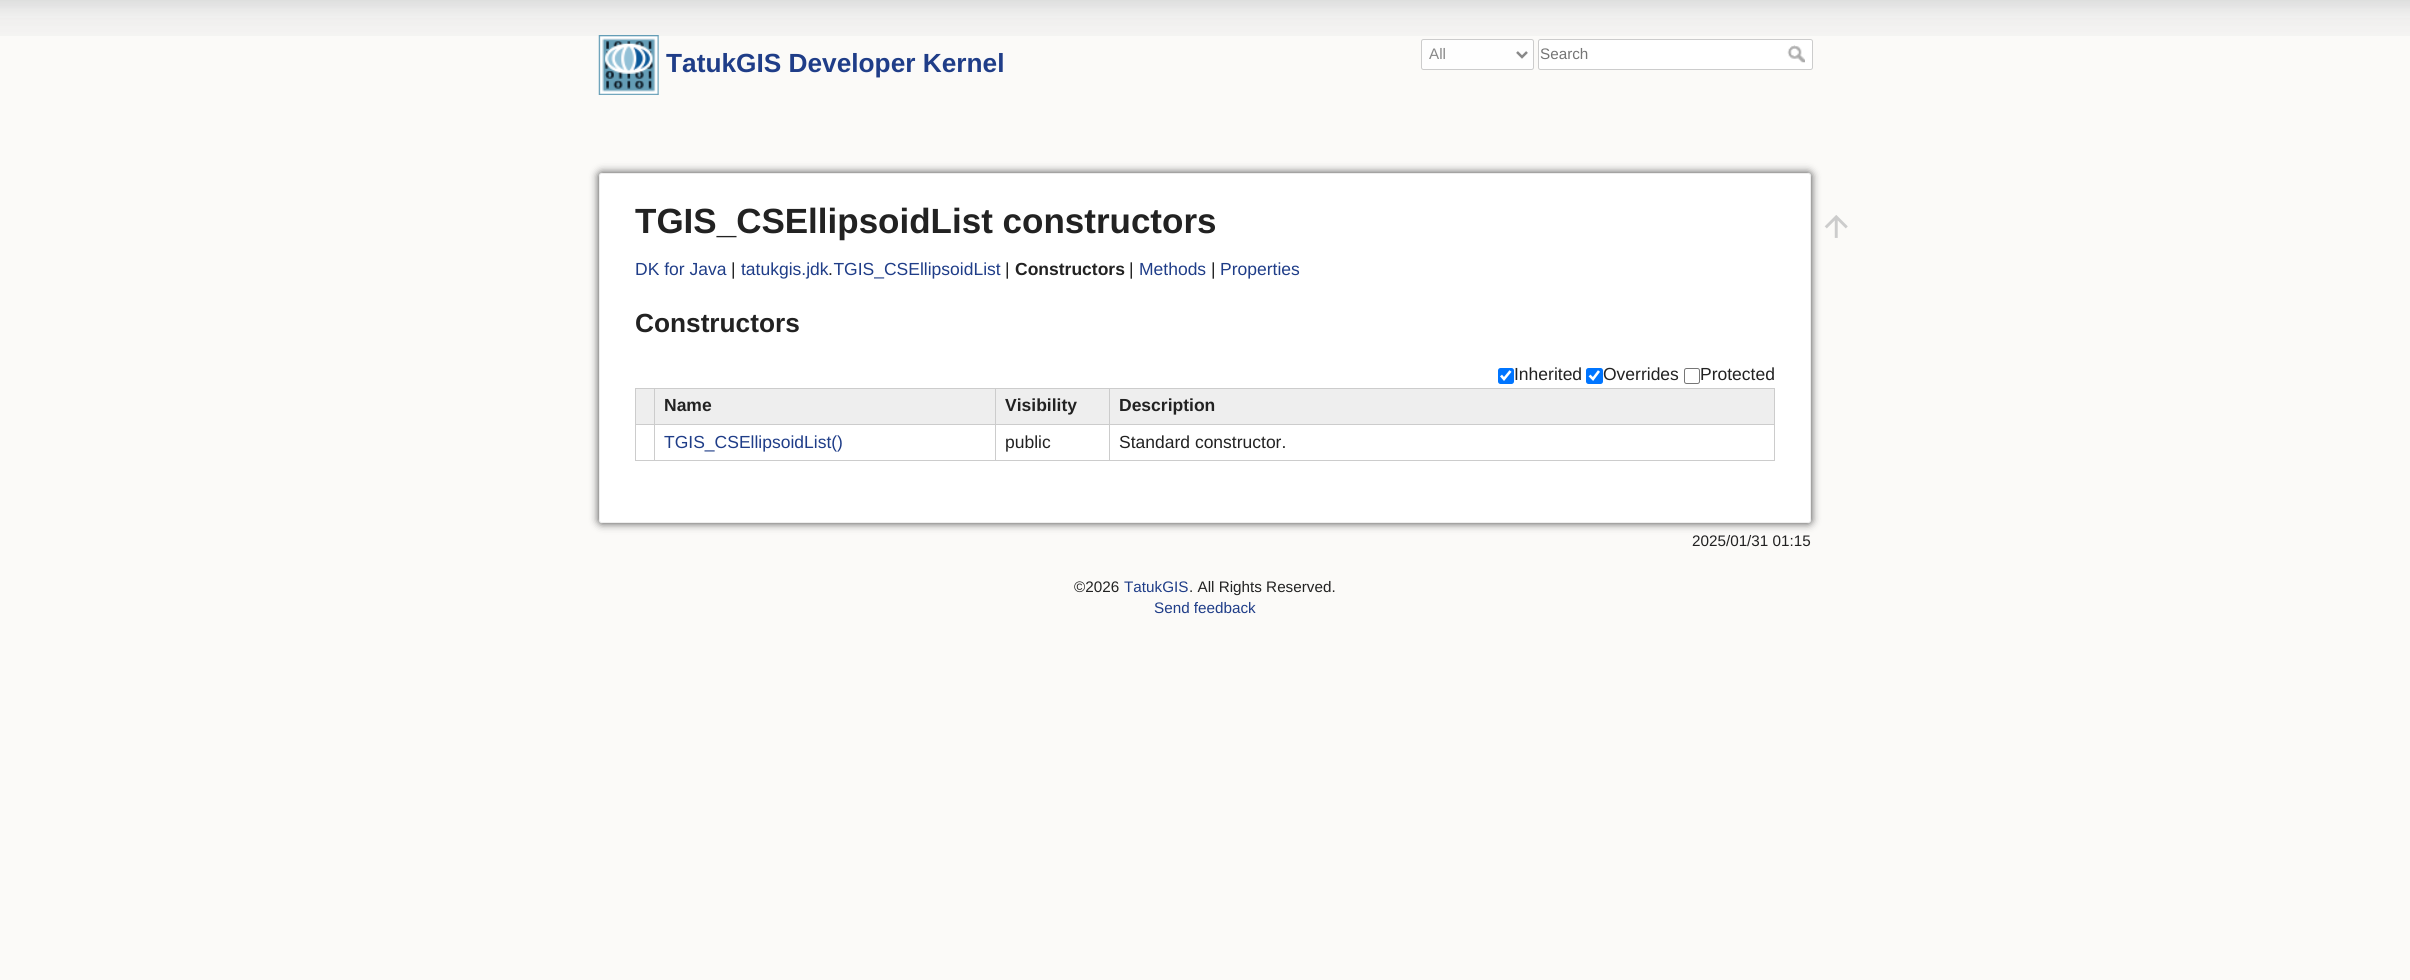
#include <cairo.h>
#include <math.h>
#include <stddef.h>

typedef struct { const char *family; double size; int italic, bold; unsigned color; } style_t;
static cairo_t *ctx;

static void ink(unsigned color) {
    cairo_set_source_rgb(ctx, (color >> 16) / 255.0, (color >> 8 & 255) / 255.0, (color & 255) / 255.0);
}

static void write(double x, double y, const char *s, const style_t *st) {
    cairo_select_font_face(ctx, st->family, st->italic ? CAIRO_FONT_SLANT_ITALIC : CAIRO_FONT_SLANT_NORMAL,
        st->bold ? CAIRO_FONT_WEIGHT_BOLD : CAIRO_FONT_WEIGHT_NORMAL);
    cairo_set_font_size(ctx, st->size);
    ink(st->color);
    cairo_move_to(ctx, x, y);
    cairo_show_text(ctx, s);
}

static void block(double x, double y, double w, double h, unsigned color) {
    ink(color);
    cairo_rectangle(ctx, x, y, w, h);
    cairo_fill(ctx);
}

static void round_path(double x, double y, double w, double h, double r) {
    cairo_new_sub_path(ctx);
    cairo_arc(ctx, x + w - r, y + h - r, r, 0, M_PI / 2);
    cairo_arc(ctx, x + r, y + h - r, r, M_PI / 2, M_PI);
    cairo_arc(ctx, x + r, y + r, r, M_PI, 1.5 * M_PI);
    cairo_arc(ctx, x + w - r, y + r, r, 1.5 * M_PI, 2 * M_PI);
    cairo_close_path(ctx);
}

static void blur_box(double x, double y, double w, double h, double r, double blur, double alpha) {
    cairo_push_group_with_content(ctx, CAIRO_CONTENT_ALPHA);
    cairo_set_operator(ctx, CAIRO_OPERATOR_SOURCE);
    for (int i = 15; i >= -15 && fmin(w, h) + blur * i / 3 > 0; i -= 2) {
        double e = blur * i / 6;
        cairo_set_source_rgba(ctx, 0, 0, 0, alpha * erfc((i - 1) / 8.5) / 2);
        round_path(x - e, y - e, w + 2 * e, h + 2 * e, fmax(0, fmin(r + e + blur * .6, fmin(w, h) / 2 + e)));
        cairo_fill(ctx);
    }
    cairo_pattern_t *soft = cairo_pop_group(ctx);
    cairo_mask(ctx, soft);
    cairo_pattern_destroy(soft);
}

static void paste(const char *path, double x, double y, double w, double h) {
    cairo_surface_t *image = cairo_image_surface_create_from_png(path);
    cairo_save(ctx);
    cairo_set_source_surface(ctx, image, x, y);
    cairo_rectangle(ctx, x, y, w, h);
    cairo_fill(ctx);
    cairo_restore(ctx);
    cairo_surface_destroy(image);
}

static const style_t s1 = {"Liberation Sans", 26.25, 0, 1, 0x1f3d88};
static const style_t s2 = {"Liberation Sans", 15.25, 0, 0, 0x888888};
static const style_t s3 = {"Liberation Sans", 15.25, 0, 0, 0x757575};
static const style_t s4 = {"Liberation Sans", 35, 0, 1, 0x222222};
static const style_t s5 = {"Liberation Sans", 17.5, 0, 0, 0x1f3d88};
static const style_t s6 = {"Liberation Sans", 17.5, 0, 0, 0x222222};
static const style_t s7 = {"Liberation Sans", 17.5, 0, 1, 0x222222};
static const style_t s8 = {"Liberation Sans", 26.25, 0, 1, 0x222222};
static const style_t s9 = {"Liberation Sans", 15.25, 0, 0, 0x222222};
static const style_t s10 = {"Liberation Sans", 15.25, 0, 0, 0x1f3d88};

int main(void) {
    cairo_surface_t *surface = cairo_image_surface_create(CAIRO_FORMAT_RGB24, 2410, 980);
    ctx = cairo_create(surface);
    cairo_font_options_t *options = cairo_font_options_create();
    cairo_font_options_set_hint_metrics(options, CAIRO_HINT_METRICS_OFF);
    cairo_font_options_set_hint_style(options, CAIRO_HINT_STYLE_NONE);
    cairo_set_font_options(ctx, options);
    cairo_set_miter_limit(ctx, 4);
    ink(0xfbfaf8);
    cairo_paint(ctx);
    paste("pic1.png", 0, 0, 2410, 36);
    paste("pic2.png", 598, 35, 61, 60);
    write(666, 72, "TatukGIS Developer Kernel", &s1);
    ink(0xfefefe);
    round_path(1421.5, 39.5, 112, 30, 2);
    cairo_fill_preserve(ctx);
    ink(0xcccccc);
    cairo_set_line_width(ctx, 1);
    cairo_stroke(ctx);
    cairo_new_path(ctx);
    cairo_move_to(ctx, 1517, 52);
    cairo_line_to(ctx, 1522, 57);
    cairo_line_to(ctx, 1527, 52);
    ink(0x888888);
    cairo_set_line_width(ctx, 2.5);
    cairo_stroke(ctx);
    write(1429, 59, "All", &s2);
    ink(0xffffff);
    round_path(1538.5, 39.5, 274, 30, 2);
    cairo_fill_preserve(ctx);
    ink(0xcccccc);
    cairo_set_line_width(ctx, 1);
    cairo_stroke(ctx);
    write(1540, 59, "Search", &s3);
    paste("pic3.png", 1787, 45, 18, 18);
    ink(0x404040);
    blur_box(599, 173, 1212, 350, 2.5, 4.5, 1);
    ink(0xffffff);
    round_path(599.5, 173.5, 1211, 349, 2);
    cairo_fill_preserve(ctx);
    ink(0xeeeeee);
    cairo_stroke(ctx);
    write(635, 233, "TGIS_CSEllipsoidList constructors", &s4);
    write(635, 275, "DK for Java", &s5);
    write(731, 275, "|", &s6);
    write(741, 275, "tatukgis.jdk TGIS_CSEllipsoidList", &s5);
    write(1005, 275, "|", &s6);
    write(1015, 275, "Constructors", &s7);
    write(1129, 275, "|", &s6);
    write(1139, 275, "Methods", &s5);
    write(1211, 275, "|", &s6);
    write(1220, 275, "Properties", &s5);
    write(828, 275, ".", &s6);
    write(635, 332, "Constructors", &s8);
    ink(0x0075ff);
    round_path(1498, 368, 16, 16, 2.5);
    cairo_fill(ctx);
    cairo_new_path(ctx);
    cairo_move_to(ctx, 1501, 375.5);
    cairo_line_to(ctx, 1504, 379);
    cairo_line_to(ctx, 1510.5, 371);
    ink(0xffffff);
    cairo_set_line_width(ctx, 2.6);
    cairo_stroke(ctx);
    write(1514, 380, "Inherited", &s6);
    ink(0x0075ff);
    round_path(1586, 368, 17, 16, 2.5);
    cairo_fill(ctx);
    cairo_new_path(ctx);
    cairo_move_to(ctx, 1589.5, 375.5);
    cairo_line_to(ctx, 1593, 379);
    cairo_line_to(ctx, 1599, 371);
    ink(0xffffff);
    cairo_stroke(ctx);
    write(1603, 380, "Overrides", &s6);
    round_path(1684.5, 368.5, 15, 15, 2);
    ink(0x767676);
    cairo_set_line_width(ctx, 1);
    cairo_stroke(ctx);
    write(1700, 380, "Protected", &s6);
    block(635, 388, 1140, 1, 0xcccccc);
    block(1774, 388, 1, 73, 0xcccccc);
    block(635, 460, 1140, 1, 0xcccccc);
    block(635, 388, 1, 73, 0xcccccc);
    block(636, 389, 18, 35, 0xeeeeee);
    block(655, 389, 340, 35, 0xeeeeee);
    block(1109, 424, 666, 1, 0xcccccc);
    block(1109, 424, 1, 37, 0xcccccc);
    block(995, 424, 115, 1, 0xcccccc);
    block(995, 424, 1, 37, 0xcccccc);
    block(654, 424, 342, 1, 0xcccccc);
    block(654, 424, 1, 37, 0xcccccc);
    block(635, 424, 20, 1, 0xcccccc);
    block(654, 388, 1, 37, 0xcccccc);
    write(664, 411, "Name", &s7);
    block(996, 389, 113, 35, 0xeeeeee);
    block(995, 388, 1, 37, 0xcccccc);
    write(1005, 411, "Visibility", &s7);
    block(1110, 389, 664, 35, 0xeeeeee);
    block(1109, 388, 1, 37, 0xcccccc);
    write(1119, 411, "Description", &s7);
    write(664, 448, "TGIS_CSEllipsoidList()", &s5);
    write(1005, 448, "public", &s6);
    write(1119, 448, "Standard constructor.", &s6);
    write(1692, 546, "2025/01/31 01:15", &s9);
    paste("pic4.png", 1824, 215, 24, 23);
    write(1074, 592, "©2026", &s9);
    write(1124, 592, "TatukGIS", &s10);
    write(1189, 592, ". All Rights Reserved.", &s9);
    write(1154, 613, "Send feedback", &s10);
    cairo_surface_write_to_png(surface, "screenshot.png");
    cairo_font_options_destroy(options);
    cairo_destroy(ctx);
    cairo_surface_destroy(surface);
    return 0;
}
